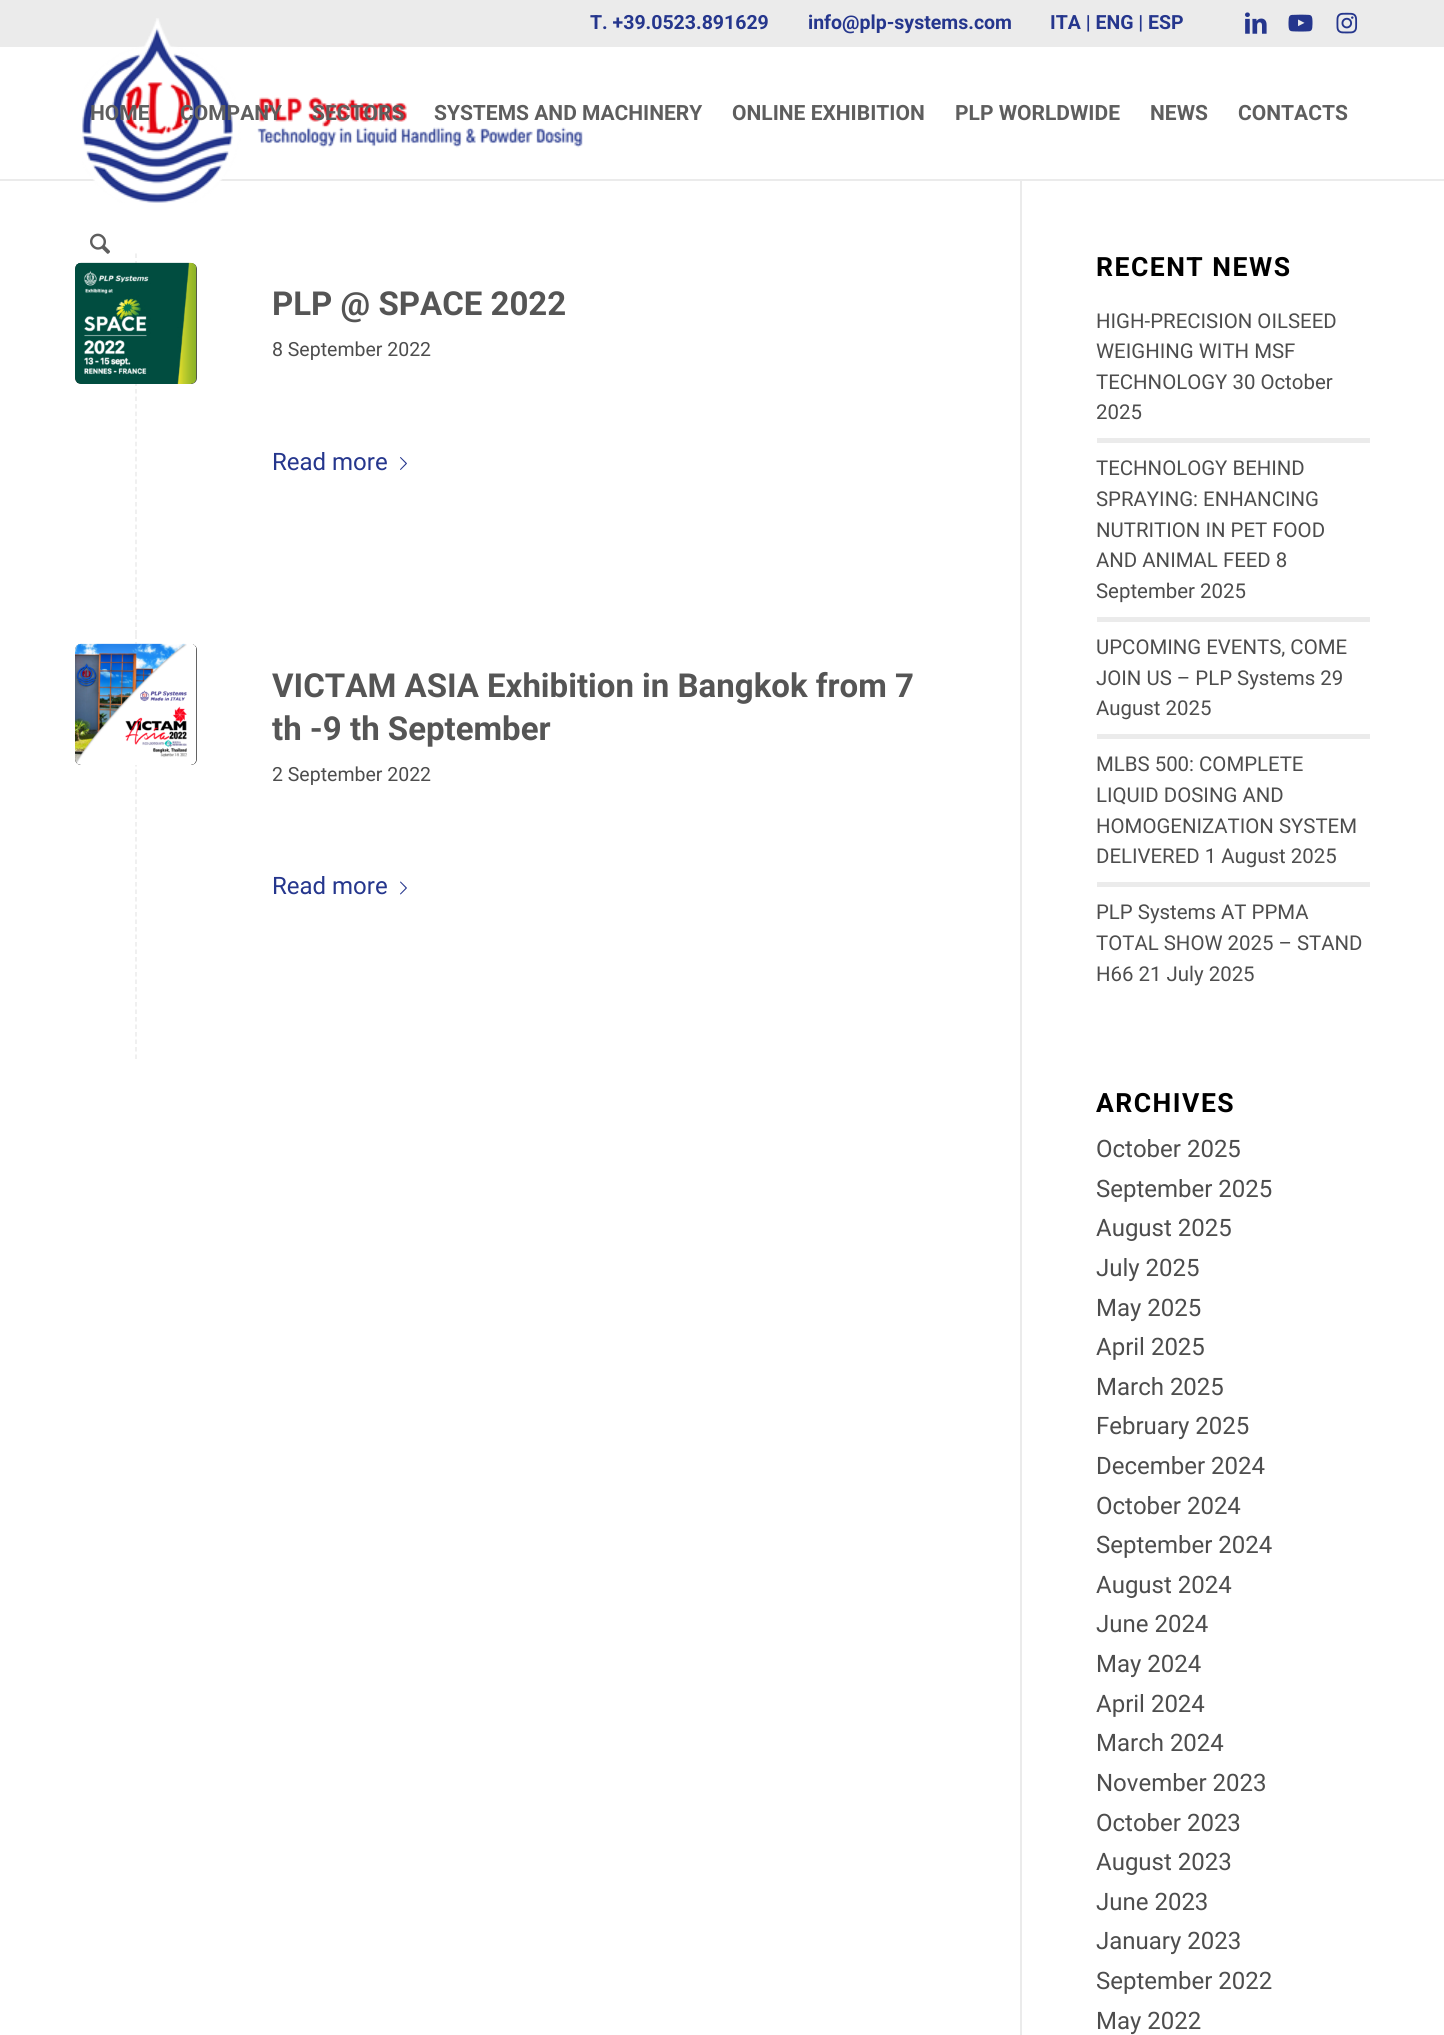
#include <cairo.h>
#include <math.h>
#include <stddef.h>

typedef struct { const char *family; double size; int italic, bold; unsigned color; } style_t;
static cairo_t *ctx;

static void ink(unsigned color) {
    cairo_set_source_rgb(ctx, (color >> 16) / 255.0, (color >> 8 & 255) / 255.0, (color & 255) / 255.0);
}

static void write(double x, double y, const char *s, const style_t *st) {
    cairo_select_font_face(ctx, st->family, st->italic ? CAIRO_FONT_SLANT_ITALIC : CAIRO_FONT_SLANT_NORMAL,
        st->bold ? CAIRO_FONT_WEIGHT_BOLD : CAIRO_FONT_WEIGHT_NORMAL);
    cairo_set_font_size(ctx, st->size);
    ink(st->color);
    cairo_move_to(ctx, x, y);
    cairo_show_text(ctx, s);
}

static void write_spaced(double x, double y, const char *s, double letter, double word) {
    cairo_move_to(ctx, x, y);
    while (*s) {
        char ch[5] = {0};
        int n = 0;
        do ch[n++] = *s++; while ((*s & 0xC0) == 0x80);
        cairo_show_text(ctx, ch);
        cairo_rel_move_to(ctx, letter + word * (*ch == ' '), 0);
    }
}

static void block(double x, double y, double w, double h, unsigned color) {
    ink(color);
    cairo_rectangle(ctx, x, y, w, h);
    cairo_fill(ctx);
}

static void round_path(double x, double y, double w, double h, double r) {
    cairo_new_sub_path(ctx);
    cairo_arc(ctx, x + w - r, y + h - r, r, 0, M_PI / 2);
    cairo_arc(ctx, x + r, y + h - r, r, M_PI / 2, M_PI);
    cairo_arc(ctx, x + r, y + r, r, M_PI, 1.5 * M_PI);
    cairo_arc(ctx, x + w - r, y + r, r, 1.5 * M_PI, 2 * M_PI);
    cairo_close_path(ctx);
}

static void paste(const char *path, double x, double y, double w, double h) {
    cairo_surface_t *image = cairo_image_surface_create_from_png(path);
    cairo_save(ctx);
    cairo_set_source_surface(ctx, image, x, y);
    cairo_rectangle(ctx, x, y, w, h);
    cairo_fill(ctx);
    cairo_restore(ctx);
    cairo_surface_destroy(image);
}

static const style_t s1 = {"Roboto", 19.5, 0, 1, 0x25368d};
static const style_t s2 = {"Roboto", 21, 0, 1, 0x5e5e5e};
static const style_t s3 = {"Roboto", 33, 0, 1, 0x555555};
static const style_t s4 = {"Roboto", 19.5, 0, 0, 0x4d4d4d};
static const style_t s5 = {"Roboto", 24, 0, 0, 0x25368d};
static const style_t s6 = {"Roboto", 20.4, 0, 0, 0x4d4d4d};
static const style_t s7 = {"Roboto", 24, 0, 0, 0x4d4d4d};

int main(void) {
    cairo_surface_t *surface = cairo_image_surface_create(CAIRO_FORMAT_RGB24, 1444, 2035);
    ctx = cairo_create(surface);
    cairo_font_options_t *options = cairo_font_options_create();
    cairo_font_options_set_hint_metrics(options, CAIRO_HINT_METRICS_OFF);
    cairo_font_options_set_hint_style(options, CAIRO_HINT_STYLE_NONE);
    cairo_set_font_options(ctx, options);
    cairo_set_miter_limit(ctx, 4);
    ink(0xffffff);
    cairo_paint(ctx);
    block(0, 0, 1444, 47, 0xebebeb);
    write(590, 29, "T. +39.0523.891629", &s1);
    write(808, 29, "info@plp-systems.com", &s1);
    write(1050, 29, "ITA | ENG | ESP", &s1);
    paste("pic1.png", 1245, 12, 22, 22);
    paste("pic2.png", 1288, 14, 25, 18);
    paste("pic3.png", 1336, 12, 22, 22);
    block(1020, 179, 2, 1856, 0xebebeb);
    block(0, 179, 1444, 2, 0xebebeb);
    paste("pic4.png", 82, 18, 501, 185);
    write(90, 120, "HOME", &s2);
    write(180, 120, "COMPANY", &s2);
    write(312, 120, "SECTORS", &s2);
    write(434, 120, "SYSTEMS AND MACHINERY", &s2);
    write(732, 120, "ONLINE EXHIBITION", &s2);
    write(955, 120, "PLP WORLDWIDE", &s2);
    write(1150, 120, "NEWS", &s2);
    write(1238, 120, "CONTACTS", &s2);
    paste("pic5.png", 90, 233, 20, 21);
    cairo_new_path(ctx);
    cairo_move_to(ctx, 136, 253.5);
    cairo_line_to(ctx, 136, 634.5);
    ink(0xebebeb);
    cairo_set_line_width(ctx, 1.5);
    cairo_set_dash(ctx, (double[]){4.5, 3.03}, 2, 0);
    cairo_stroke(ctx);
    ink(0x4d4d4d);
    round_path(75, 263, 122, 121, 6);
    cairo_fill(ctx);
    paste("pic6.png", 75, 262, 122, 122);
    write(272, 315, "PLP @ SPACE 2022", &s3);
    write(272, 356, "8 September 2022", &s4);
    write(272, 470, "Read more", &s5);
    paste("pic7.png", 400, 457, 7, 13);
    cairo_new_path(ctx);
    cairo_move_to(ctx, 136, 634.5);
    cairo_line_to(ctx, 136, 1059);
    ink(0xebebeb);
    cairo_set_dash(ctx, (double[]){4.5, 3}, 2, 0);
    cairo_stroke(ctx);
    ink(0x4d4d4d);
    round_path(75, 644, 122, 121, 6);
    cairo_fill(ctx);
    paste("pic8.png", 75, 643, 122, 122);
    write(272, 697, "VICTAM ASIA Exhibition in Bangkok from 7", &s3);
    cairo_save(ctx);
    cairo_rectangle(ctx, 272, 635, 748, 424);
    cairo_clip(ctx);
    write(272, 740, "th -9 th September", &s3);
    cairo_restore(ctx);
    write(272, 781, "2 September 2022", &s4);
    write(272, 894, "Read more", &s5);
    paste("pic9.png", 400, 881, 7, 14);
    cairo_select_font_face(ctx, "Roboto", CAIRO_FONT_SLANT_NORMAL, CAIRO_FONT_WEIGHT_BOLD);
    cairo_set_font_size(ctx, 26.5);
    ink(0x000000);
    write_spaced(1096, 276, "RECENT NEWS", 1.5, 0);
    write(1096, 328, "HIGH-PRECISION OILSEED", &s6);
    write(1096, 358, "WEIGHING WITH MSF", &s6);
    write(1096, 389, "TECHNOLOGY 30 October", &s6);
    write(1096, 419, "2025", &s6);
    block(1097, 438, 273, 5, 0xebebeb);
    write(1096, 475, "TECHNOLOGY BEHIND", &s6);
    write(1096, 506, "SPRAYING: ENHANCING", &s6);
    write(1096, 537, "NUTRITION IN PET FOOD", &s6);
    write(1096, 567, "AND ANIMAL FEED 8", &s6);
    write(1096, 598, "September 2025", &s6);
    block(1097, 617, 273, 5, 0xebebeb);
    write(1096, 654, "UPCOMING EVENTS, COME", &s6);
    write(1096, 685, "JOIN US – PLP Systems 29", &s6);
    write(1096, 715, "August 2025", &s6);
    block(1097, 734, 273, 5, 0xebebeb);
    write(1096, 771, "MLBS 500: COMPLETE", &s6);
    write(1096, 802, "LIQUID DOSING AND", &s6);
    write(1096, 833, "HOMOGENIZATION SYSTEM", &s6);
    write(1096, 863, "DELIVERED 1 August 2025", &s6);
    block(1097, 882, 273, 5, 0xebebeb);
    write(1096, 919, "PLP Systems AT PPMA", &s6);
    write(1096, 950, "TOTAL SHOW 2025 – STAND", &s6);
    write(1096, 981, "H66 21 July 2025", &s6);
    cairo_select_font_face(ctx, "Roboto", CAIRO_FONT_SLANT_NORMAL, CAIRO_FONT_WEIGHT_BOLD);
    cairo_set_font_size(ctx, 26.5);
    ink(0x000000);
    write_spaced(1096, 1112, "ARCHIVES", 1.5, 0);
    write(1096, 1157, "October 2025", &s7);
    write(1096, 1197, "September 2025", &s7);
    write(1096, 1236, "August 2025", &s7);
    write(1096, 1276, "July 2025", &s7);
    write(1096, 1316, "May 2025", &s7);
    write(1096, 1355, "April 2025", &s7);
    write(1096, 1395, "March 2025", &s7);
    write(1096, 1434, "February 2025", &s7);
    write(1096, 1474, "December 2024", &s7);
    write(1096, 1514, "October 2024", &s7);
    write(1096, 1553, "September 2024", &s7);
    write(1096, 1593, "August 2024", &s7);
    write(1096, 1632, "June 2024", &s7);
    write(1096, 1672, "May 2024", &s7);
    write(1096, 1712, "April 2024", &s7);
    write(1096, 1751, "March 2024", &s7);
    write(1096, 1791, "November 2023", &s7);
    write(1096, 1831, "October 2023", &s7);
    write(1096, 1870, "August 2023", &s7);
    write(1096, 1910, "June 2023", &s7);
    write(1096, 1949, "January 2023", &s7);
    write(1096, 1989, "September 2022", &s7);
    write(1096, 2029, "May 2022", &s7);
    cairo_surface_write_to_png(surface, "screenshot.png");
    cairo_font_options_destroy(options);
    cairo_destroy(ctx);
    cairo_surface_destroy(surface);
    return 0;
}
